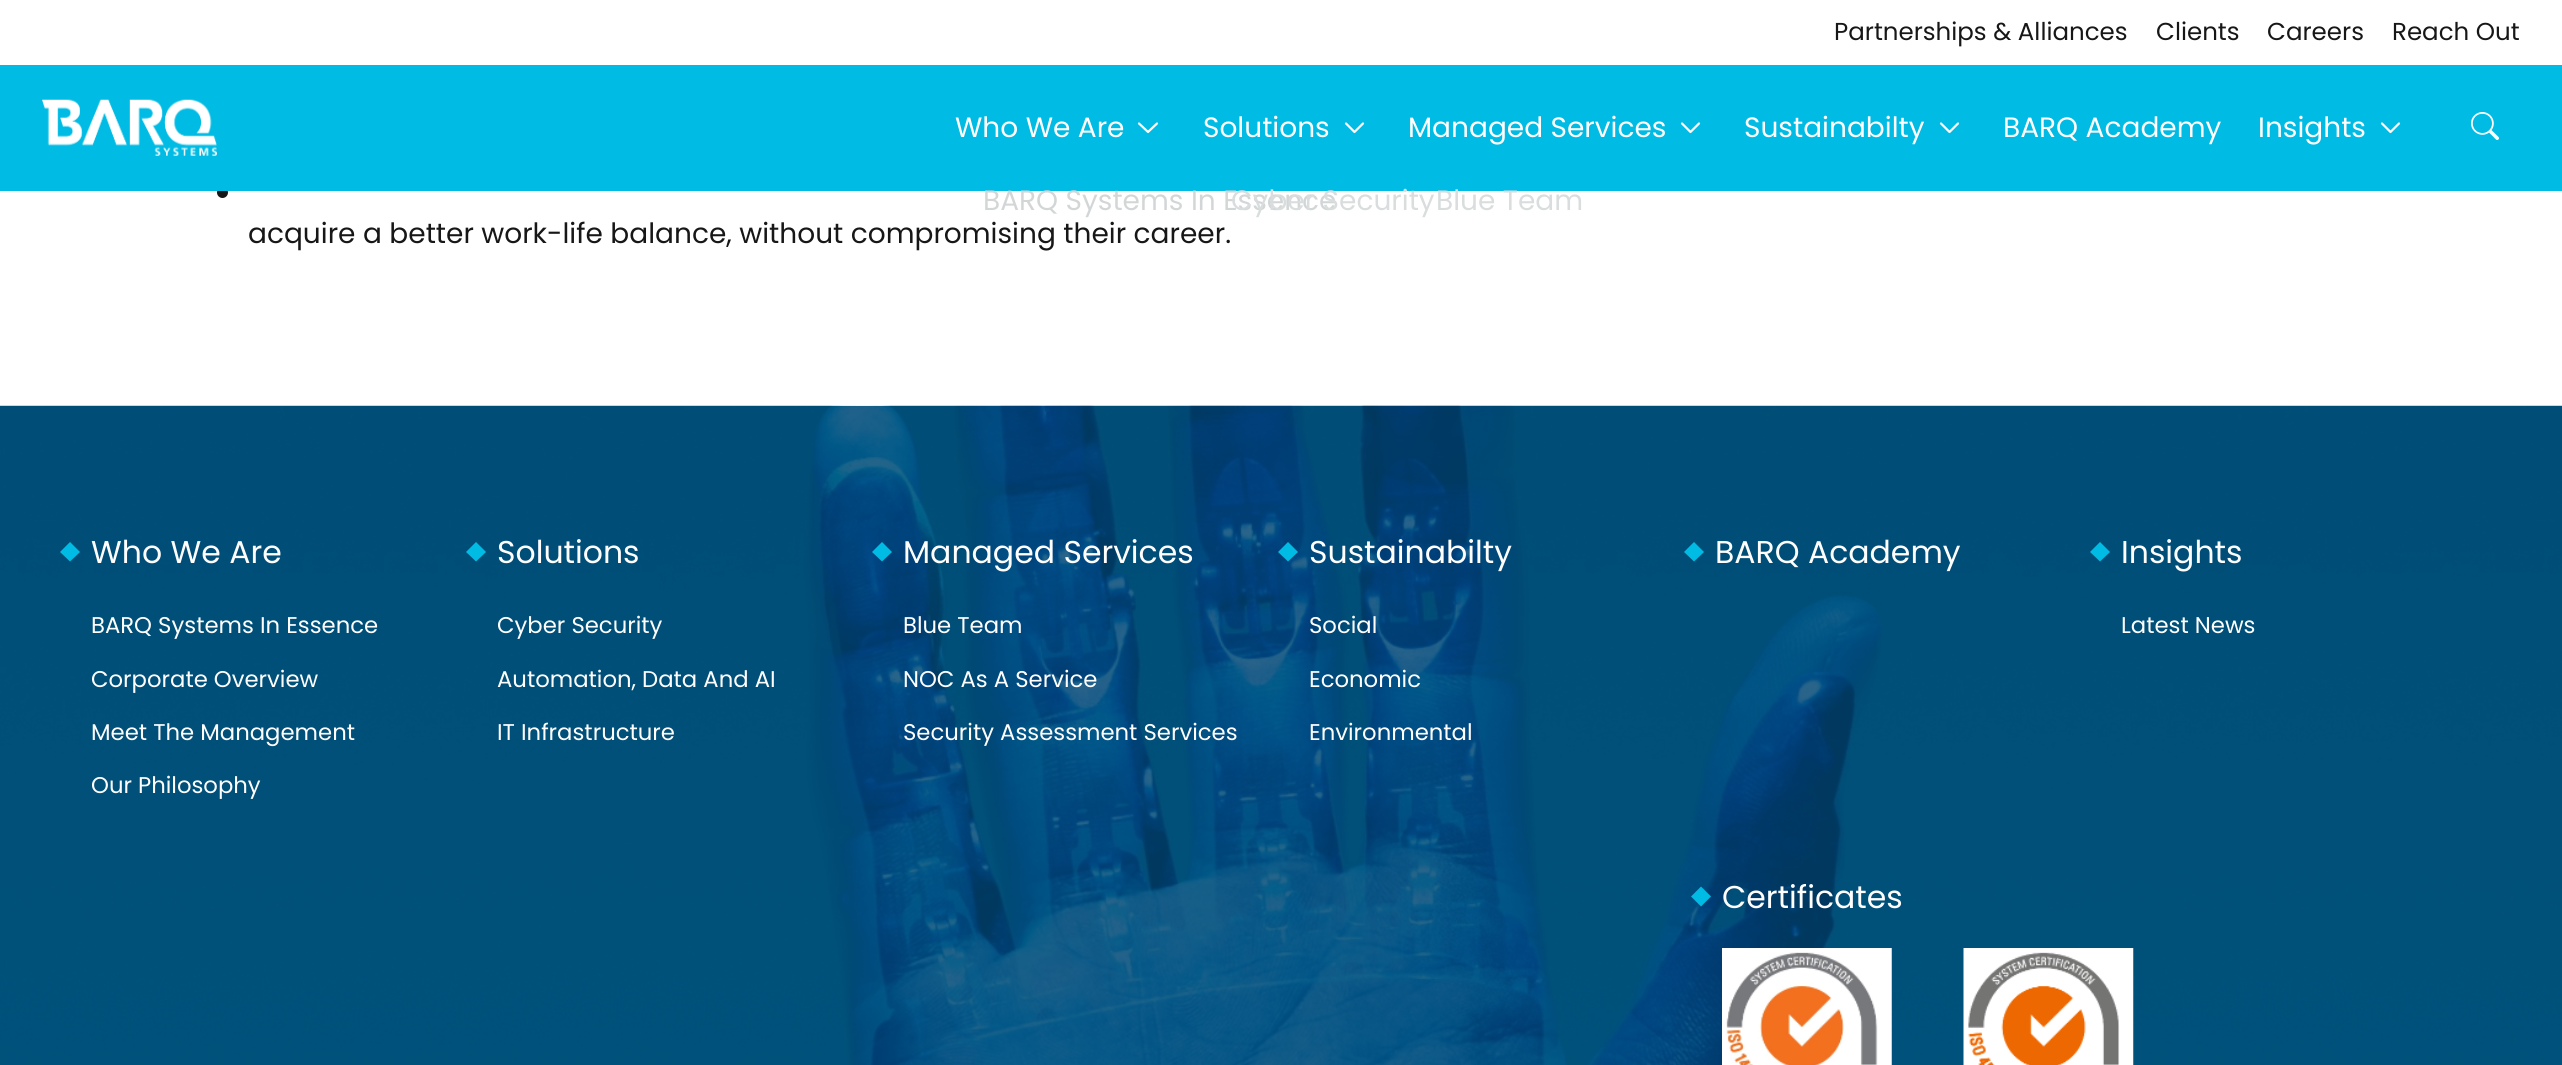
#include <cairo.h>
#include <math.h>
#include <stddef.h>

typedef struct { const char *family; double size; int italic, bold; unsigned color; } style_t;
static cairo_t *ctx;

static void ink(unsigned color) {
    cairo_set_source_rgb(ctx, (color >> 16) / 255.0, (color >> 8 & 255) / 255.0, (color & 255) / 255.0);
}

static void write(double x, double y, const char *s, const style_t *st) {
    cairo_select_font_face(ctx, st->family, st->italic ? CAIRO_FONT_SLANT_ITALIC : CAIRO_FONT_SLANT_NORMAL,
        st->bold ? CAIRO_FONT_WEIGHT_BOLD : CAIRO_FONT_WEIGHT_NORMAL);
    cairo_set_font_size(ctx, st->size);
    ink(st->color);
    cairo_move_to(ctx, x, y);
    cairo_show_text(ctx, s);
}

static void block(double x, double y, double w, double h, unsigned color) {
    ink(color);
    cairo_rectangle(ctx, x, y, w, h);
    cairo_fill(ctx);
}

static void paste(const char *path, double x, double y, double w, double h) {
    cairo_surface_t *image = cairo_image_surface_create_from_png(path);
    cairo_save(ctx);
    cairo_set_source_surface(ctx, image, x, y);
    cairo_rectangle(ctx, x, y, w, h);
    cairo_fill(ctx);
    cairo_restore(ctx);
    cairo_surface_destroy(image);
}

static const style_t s1 = {"Poppins", 24.5, 0, 0, 0x171717};
static const style_t s2 = {"Poppins", 28, 0, 0, 0xffffff};
static const style_t s3 = {"Poppins", 28, 0, 0, 0xd3d6d7};
static const style_t s4 = {"Poppins", 28, 0, 0, 0xd9ddde};
static const style_t s5 = {"Poppins", 28, 0, 0, 0x171717};
static const style_t s6 = {"Poppins", 31.5, 0, 0, 0xffffff};
static const style_t s7 = {"Poppins", 22.75, 0, 0, 0xffffff};

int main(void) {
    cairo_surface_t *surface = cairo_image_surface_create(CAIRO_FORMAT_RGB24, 2562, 1065);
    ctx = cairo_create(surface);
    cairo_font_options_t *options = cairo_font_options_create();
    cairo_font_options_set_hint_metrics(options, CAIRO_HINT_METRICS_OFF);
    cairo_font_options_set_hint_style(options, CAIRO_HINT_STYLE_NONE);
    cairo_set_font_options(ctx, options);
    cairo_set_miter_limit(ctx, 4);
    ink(0xffffff);
    cairo_paint(ctx);
    ink(0x171717);
    cairo_arc(ctx, 222.5, 192.5, 5.5, 0, 2 * M_PI);
    cairo_fill(ctx);
    block(0, 65, 2562, 126, 0x00bbe3);
    write(1834, 40, "Partnerships & Alliances", &s1);
    write(2156, 40, "Clients", &s1);
    write(2267, 40, "Careers", &s1);
    write(2392, 40, "Reach Out", &s1);
    paste("pic1.png", 42, 99, 175, 57);
    write(1203, 137, "Solutions", &s2);
    cairo_new_path(ctx);
    cairo_move_to(ctx, 1346, 123.5);
    cairo_line_to(ctx, 1354.5, 132);
    cairo_line_to(ctx, 1363, 123.5);
    cairo_set_line_width(ctx, 2.2);
    cairo_set_line_cap(ctx, CAIRO_LINE_CAP_ROUND);
    cairo_set_line_join(ctx, CAIRO_LINE_JOIN_ROUND);
    cairo_stroke(ctx);
    write(983, 210, "BARQ Systems In Essence", &s3);
    write(1231, 210, "Cyber Security", &s4);
    write(1408, 137, "Managed Services", &s2);
    cairo_new_path(ctx);
    cairo_move_to(ctx, 1682, 123.5);
    cairo_line_to(ctx, 1690.5, 132);
    cairo_line_to(ctx, 1699, 123.5);
    cairo_stroke(ctx);
    write(1436, 210, "Blue Team", &s4);
    write(1744, 137, "Sustainabilty", &s2);
    cairo_new_path(ctx);
    cairo_move_to(ctx, 1941, 123.5);
    cairo_line_to(ctx, 1949.5, 132);
    cairo_line_to(ctx, 1958, 123.5);
    cairo_stroke(ctx);
    write(2258, 137, "Insights", &s2);
    cairo_new_path(ctx);
    cairo_move_to(ctx, 2382, 123.5);
    cairo_line_to(ctx, 2390.5, 132);
    cairo_line_to(ctx, 2399, 123.5);
    cairo_stroke(ctx);
    write(955, 137, "Who We Are", &s2);
    cairo_new_path(ctx);
    cairo_move_to(ctx, 1139, 123.5);
    cairo_line_to(ctx, 1148, 132);
    cairo_line_to(ctx, 1157, 123.5);
    cairo_stroke(ctx);
    write(2003, 137, "BARQ Academy", &s2);
    paste("pic2.png", 2471, 112, 28, 28);
    write(248, 243, "acquire a better work-life balance, without compromising their career.", &s5);
    paste("pic3.png", 0, 405, 2562, 660);
    ink(0x00bbe3);
    cairo_new_path(ctx);
    cairo_move_to(ctx, 70, 542);
    cairo_line_to(ctx, 80, 552);
    cairo_line_to(ctx, 70, 561.5);
    cairo_line_to(ctx, 60, 552);
    cairo_close_path(ctx);
    cairo_fill(ctx);
    write(91, 563, "Who We Are", &s6);
    write(91, 633, "BARQ Systems In Essence", &s7);
    write(91, 687, "Corporate Overview", &s7);
    write(91, 740, "Meet The Management", &s7);
    write(91, 793, "Our Philosophy", &s7);
    ink(0x00bbe3);
    cairo_new_path(ctx);
    cairo_move_to(ctx, 476, 542);
    cairo_line_to(ctx, 486, 552);
    cairo_line_to(ctx, 476, 561.5);
    cairo_line_to(ctx, 466, 552);
    cairo_close_path(ctx);
    cairo_fill(ctx);
    write(497, 563, "Solutions", &s6);
    write(497, 633, "Cyber Security", &s7);
    write(497, 687, "Automation, Data And AI", &s7);
    write(497, 740, "IT Infrastructure", &s7);
    ink(0x00bbe3);
    cairo_new_path(ctx);
    cairo_move_to(ctx, 882, 542);
    cairo_line_to(ctx, 892, 552);
    cairo_line_to(ctx, 882, 561.5);
    cairo_line_to(ctx, 872, 552);
    cairo_close_path(ctx);
    cairo_fill(ctx);
    write(903, 563, "Managed Services", &s6);
    write(903, 633, "Blue Team", &s7);
    write(903, 687, "NOC As A Service", &s7);
    write(903, 740, "Security Assessment Services", &s7);
    ink(0x00bbe3);
    cairo_new_path(ctx);
    cairo_move_to(ctx, 1288, 542);
    cairo_line_to(ctx, 1298, 552);
    cairo_line_to(ctx, 1288, 561.5);
    cairo_line_to(ctx, 1278, 552);
    cairo_close_path(ctx);
    cairo_fill(ctx);
    write(1309, 563, "Sustainabilty", &s6);
    write(1309, 633, "Social", &s7);
    write(1309, 687, "Economic", &s7);
    write(1309, 740, "Environmental", &s7);
    ink(0x00bbe3);
    cairo_new_path(ctx);
    cairo_move_to(ctx, 1694, 542);
    cairo_line_to(ctx, 1704, 552);
    cairo_line_to(ctx, 1694, 561.5);
    cairo_line_to(ctx, 1684, 552);
    cairo_close_path(ctx);
    cairo_fill(ctx);
    write(1715, 563, "BARQ Academy", &s6);
    ink(0x00bbe3);
    cairo_new_path(ctx);
    cairo_move_to(ctx, 2100, 542);
    cairo_line_to(ctx, 2110, 552);
    cairo_line_to(ctx, 2100, 561.5);
    cairo_line_to(ctx, 2090, 552);
    cairo_close_path(ctx);
    cairo_fill(ctx);
    write(2121, 563, "Insights", &s6);
    write(2121, 633, "Latest News", &s7);
    ink(0x00bbe3);
    cairo_new_path(ctx);
    cairo_move_to(ctx, 1701, 886.5);
    cairo_line_to(ctx, 1711, 896.5);
    cairo_line_to(ctx, 1701, 906.5);
    cairo_line_to(ctx, 1691, 896.5);
    cairo_close_path(ctx);
    cairo_fill(ctx);
    write(1722, 908, "Certificates", &s6);
    paste("pic4.png", 1722, 948, 170, 117);
    paste("pic5.png", 1963, 948, 171, 117);
    cairo_surface_write_to_png(surface, "screenshot.png");
    cairo_font_options_destroy(options);
    cairo_destroy(ctx);
    cairo_surface_destroy(surface);
    return 0;
}
